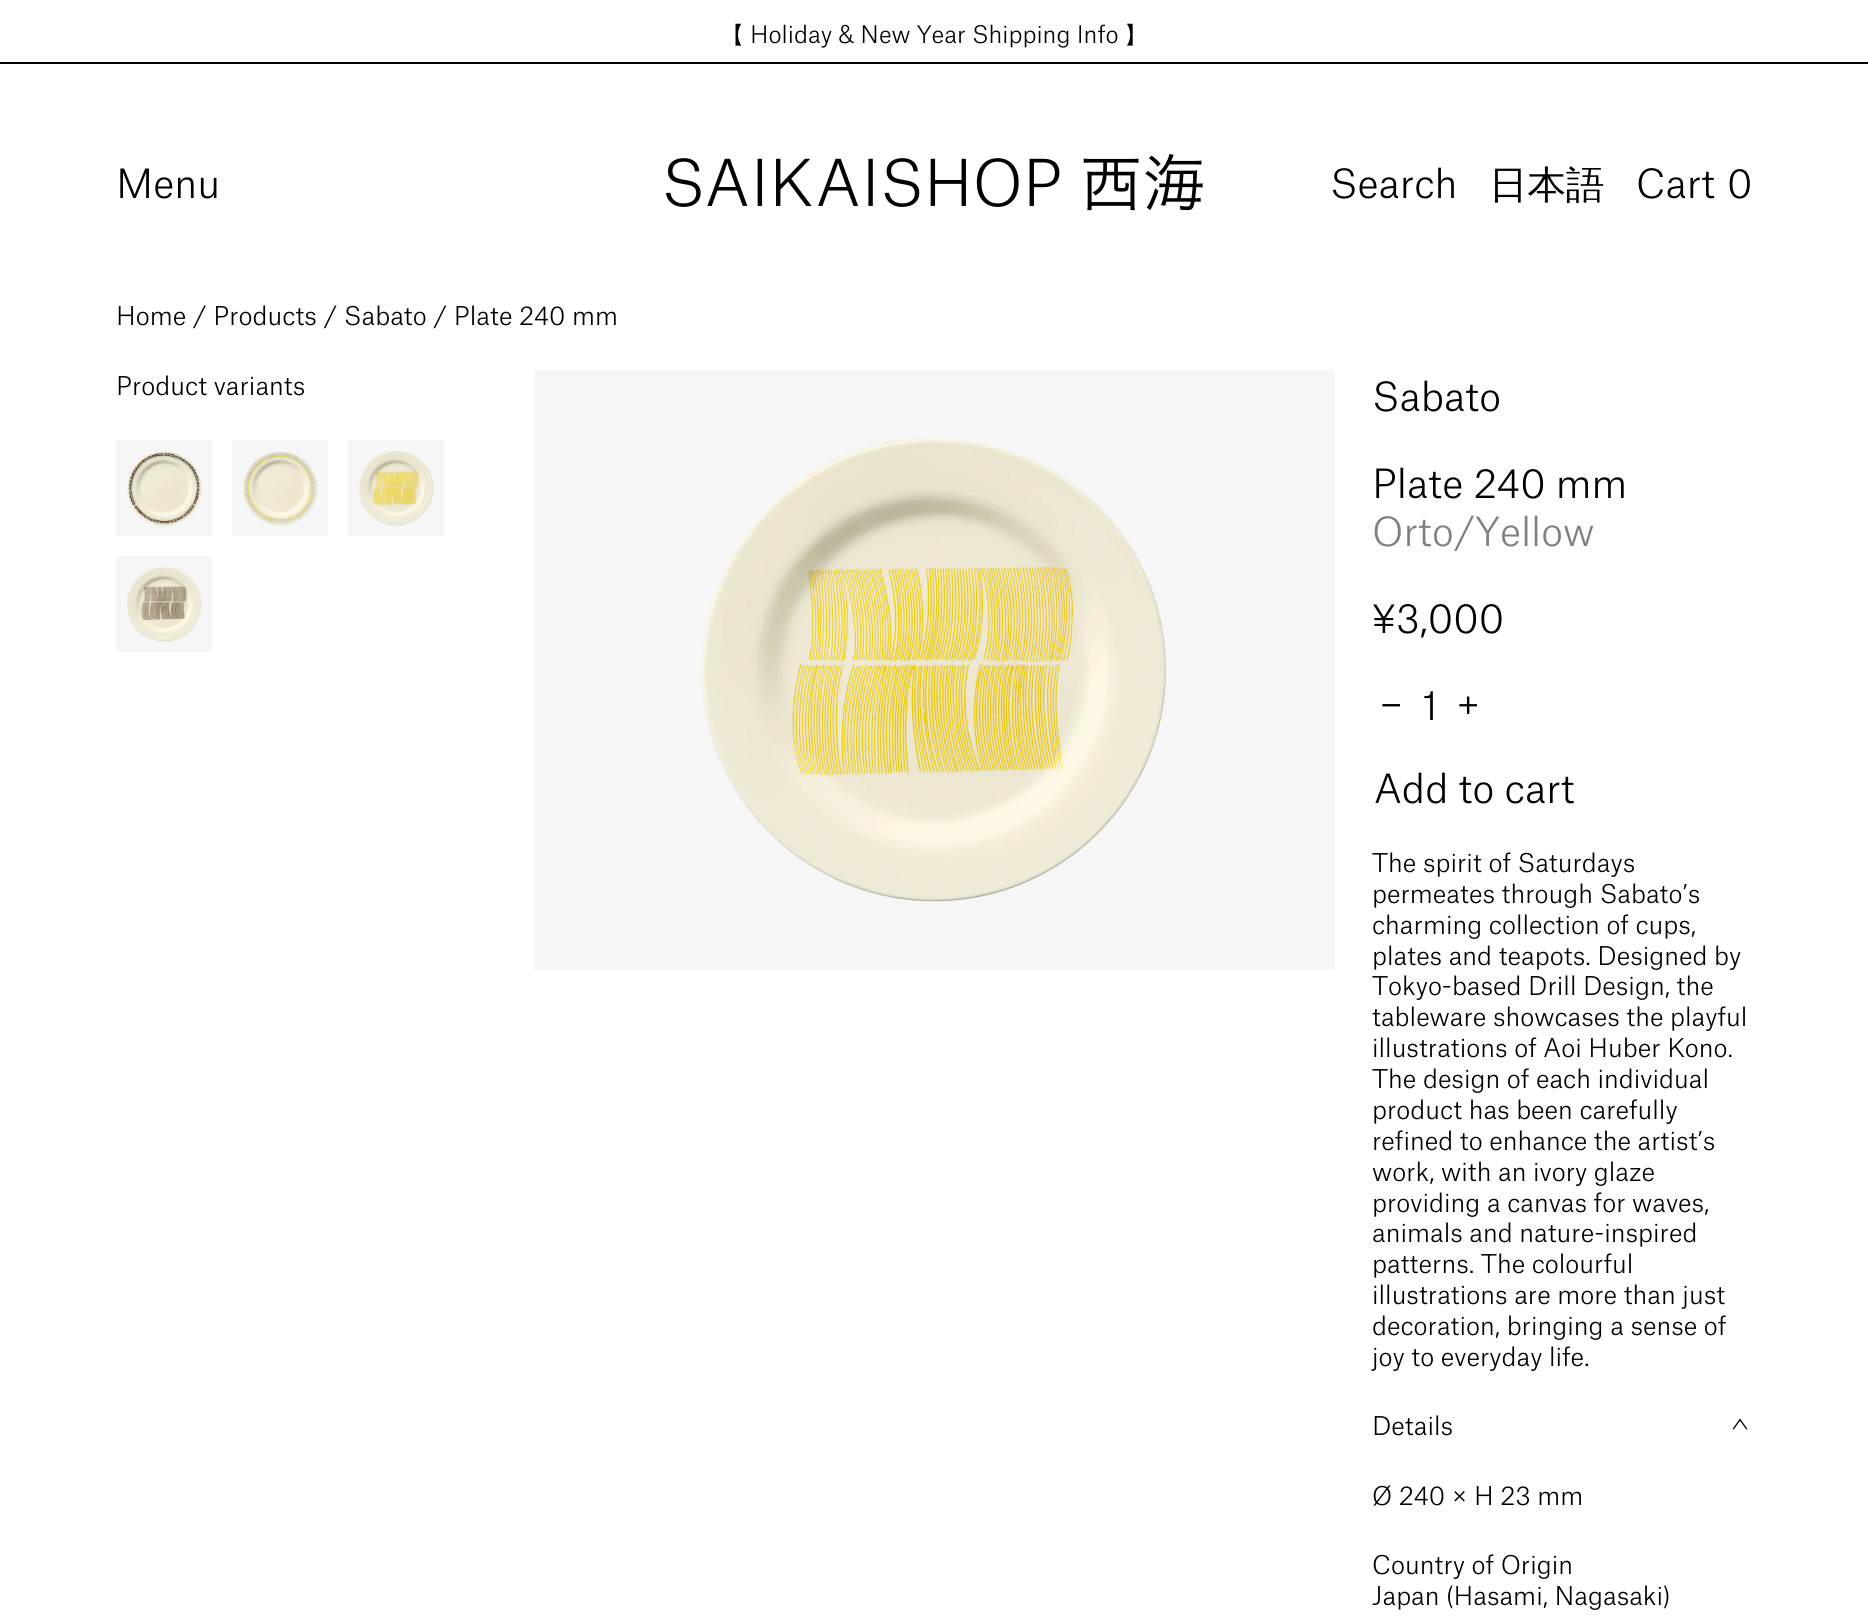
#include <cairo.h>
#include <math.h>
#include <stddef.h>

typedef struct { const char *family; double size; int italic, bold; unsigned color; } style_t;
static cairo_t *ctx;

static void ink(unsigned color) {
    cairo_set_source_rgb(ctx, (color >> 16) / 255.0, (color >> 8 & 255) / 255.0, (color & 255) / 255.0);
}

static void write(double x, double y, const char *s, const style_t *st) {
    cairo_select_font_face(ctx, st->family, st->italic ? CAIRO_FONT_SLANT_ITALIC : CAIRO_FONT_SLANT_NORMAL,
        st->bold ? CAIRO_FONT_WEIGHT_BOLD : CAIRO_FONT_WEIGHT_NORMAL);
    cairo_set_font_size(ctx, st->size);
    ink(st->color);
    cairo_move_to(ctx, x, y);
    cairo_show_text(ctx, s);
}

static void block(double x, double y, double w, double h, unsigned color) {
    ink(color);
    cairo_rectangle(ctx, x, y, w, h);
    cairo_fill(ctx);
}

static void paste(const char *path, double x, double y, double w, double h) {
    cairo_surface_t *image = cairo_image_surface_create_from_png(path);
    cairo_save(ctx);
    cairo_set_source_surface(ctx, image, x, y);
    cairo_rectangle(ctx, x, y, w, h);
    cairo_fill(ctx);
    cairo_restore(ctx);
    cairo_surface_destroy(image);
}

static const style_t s1 = {"WenQuanYi Zen Hei Medium", 23.2, 0, 0, 0x000000};
static const style_t s2 = {"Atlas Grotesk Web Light", 23.2, 0, 0, 0x000000};
static const style_t s3 = {"Atlas Grotesk Web Light", 38.5, 0, 0, 0x000000};
static const style_t s4 = {"WenQuanYi Zen Hei Medium", 38.5, 0, 0, 0x000000};
static const style_t s5 = {"Atlas Grotesk Web Light", 24.75, 0, 0, 0x000000};
static const style_t s6 = {"Atlas Grotesk Web Light", 38.5, 0, 0, 0x808080};

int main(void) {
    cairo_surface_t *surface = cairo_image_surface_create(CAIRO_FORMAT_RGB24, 1868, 1623);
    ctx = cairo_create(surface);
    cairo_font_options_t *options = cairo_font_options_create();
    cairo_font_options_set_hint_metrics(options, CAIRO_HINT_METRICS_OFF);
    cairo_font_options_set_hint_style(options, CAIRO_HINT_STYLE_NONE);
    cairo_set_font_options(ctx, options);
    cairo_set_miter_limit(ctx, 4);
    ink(0xffffff);
    cairo_paint(ctx);
    block(0, 62, 1868, 2, 0x000000);
    write(721, 43, "【", &s1);
    write(750, 43, "Holiday & New Year Shipping Info", &s2);
    write(1124, 43, "】", &s1);
    write(116, 198, "Menu", &s3);
    paste("pic1.png", 666, 154, 537, 57);
    write(1330, 198, "Search", &s3);
    write(1489, 198, "日本語", &s4);
    write(1636, 198, "Cart", &s3);
    write(1727, 198, "0", &s3);
    write(116, 325, "Home / Products / Sabato / Plate 240 mm", &s5);
    write(116, 395, "Product variants", &s5);
    paste("pic2.png", 116, 440, 96, 96);
    paste("pic3.png", 232, 440, 96, 96);
    paste("pic4.png", 348, 440, 96, 96);
    paste("pic5.png", 116, 556, 96, 96);
    block(534, 370, 800, 600, 0xf6f6f6);
    paste("pic6.png", 701, 437, 466, 465);
    write(1372, 411, "Sabato", &s3);
    write(1372, 498, "Plate 240 mm", &s3);
    write(1372, 546, "Orto/Yellow", &s6);
    write(1372, 633, "¥3,000", &s3);
    write(1379, 719, "−", &s3);
    write(1422, 720, "1", &s3);
    write(1456, 719, "+", &s3);
    write(1374, 803, "Add to cart", &s3);
    write(1372, 872, "The spirit of Saturdays", &s5);
    write(1372, 903, "permeates through Sabato’s", &s5);
    write(1372, 934, "charming collection of cups,", &s5);
    write(1372, 965, "plates and teapots. Designed by", &s5);
    write(1372, 995, "Tokyo-based Drill Design, the", &s5);
    write(1372, 1026, "tableware showcases the playful", &s5);
    write(1372, 1057, "illustrations of Aoi Huber Kono.", &s5);
    write(1372, 1088, "The design of each individual", &s5);
    write(1372, 1119, "product has been carefully", &s5);
    write(1372, 1150, "refined to enhance the artist’s", &s5);
    write(1372, 1181, "work, with an ivory glaze", &s5);
    write(1372, 1212, "providing a canvas for waves,", &s5);
    write(1372, 1242, "animals and nature-inspired", &s5);
    write(1372, 1273, "patterns. The colourful", &s5);
    write(1372, 1304, "illustrations are more than just", &s5);
    write(1372, 1335, "decoration, bringing a sense of", &s5);
    write(1372, 1366, "joy to everyday life.", &s5);
    write(1372, 1435, "Details", &s5);
    paste("pic7.png", 1732, 1418, 16, 12);
    write(1372, 1505, "Ø 240 × H 23 mm", &s5);
    write(1372, 1574, "Country of Origin", &s5);
    write(1372, 1605, "Japan (Hasami, Nagasaki)", &s5);
    cairo_surface_write_to_png(surface, "screenshot.png");
    cairo_font_options_destroy(options);
    cairo_destroy(ctx);
    cairo_surface_destroy(surface);
    return 0;
}
